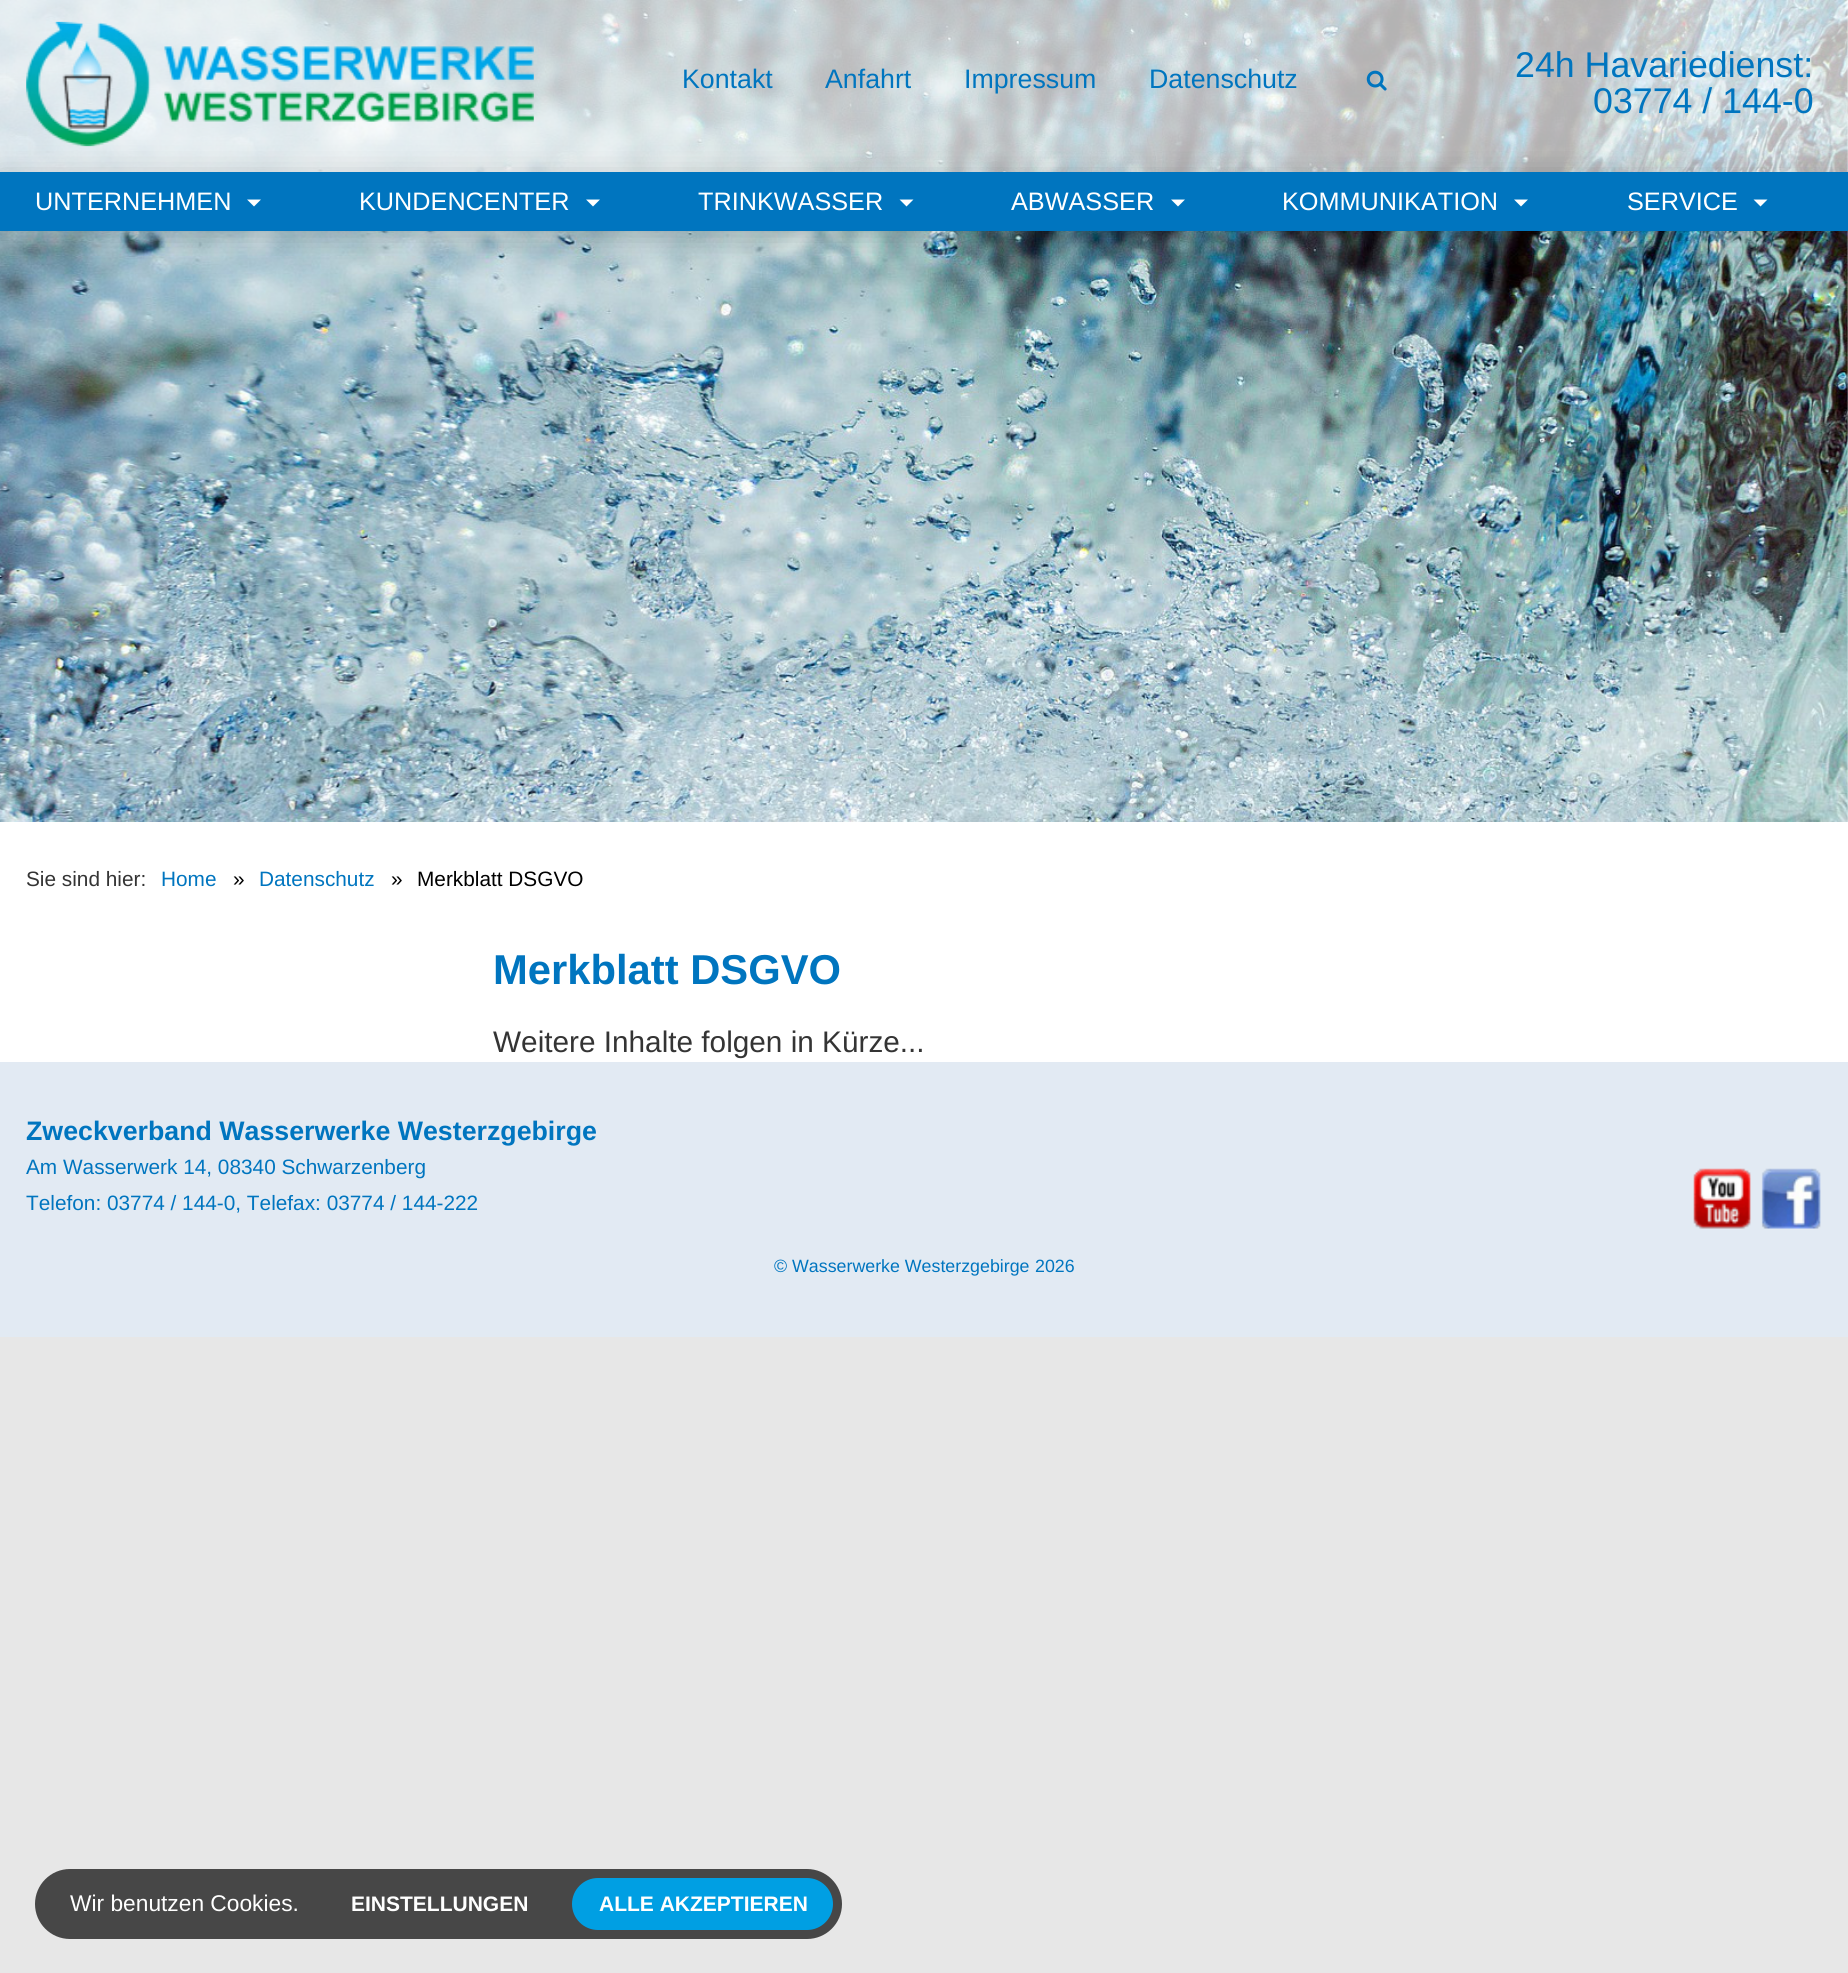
#include <cairo.h>
#include <math.h>
#include <stddef.h>

typedef struct { const char *family; double size; int italic, bold; unsigned color; } style_t;
static cairo_t *ctx;

static void ink(unsigned color) {
    cairo_set_source_rgb(ctx, (color >> 16) / 255.0, (color >> 8 & 255) / 255.0, (color & 255) / 255.0);
}

static void write(double x, double y, const char *s, const style_t *st) {
    cairo_select_font_face(ctx, st->family, st->italic ? CAIRO_FONT_SLANT_ITALIC : CAIRO_FONT_SLANT_NORMAL,
        st->bold ? CAIRO_FONT_WEIGHT_BOLD : CAIRO_FONT_WEIGHT_NORMAL);
    cairo_set_font_size(ctx, st->size);
    ink(st->color);
    cairo_move_to(ctx, x, y);
    cairo_show_text(ctx, s);
}

static void block(double x, double y, double w, double h, unsigned color) {
    ink(color);
    cairo_rectangle(ctx, x, y, w, h);
    cairo_fill(ctx);
}

static void round_path(double x, double y, double w, double h, double r) {
    cairo_new_sub_path(ctx);
    cairo_arc(ctx, x + w - r, y + h - r, r, 0, M_PI / 2);
    cairo_arc(ctx, x + r, y + h - r, r, M_PI / 2, M_PI);
    cairo_arc(ctx, x + r, y + r, r, M_PI, 1.5 * M_PI);
    cairo_arc(ctx, x + w - r, y + r, r, 1.5 * M_PI, 2 * M_PI);
    cairo_close_path(ctx);
}

static void blur_box(double x, double y, double w, double h, double r, double blur, double alpha) {
    cairo_push_group_with_content(ctx, CAIRO_CONTENT_ALPHA);
    cairo_set_operator(ctx, CAIRO_OPERATOR_SOURCE);
    for (int i = 15; i >= -15 && fmin(w, h) + blur * i / 3 > 0; i -= 2) {
        double e = blur * i / 6;
        cairo_set_source_rgba(ctx, 0, 0, 0, alpha * erfc((i - 1) / 8.5) / 2);
        round_path(x - e, y - e, w + 2 * e, h + 2 * e, fmax(0, fmin(r + e + blur * .6, fmin(w, h) / 2 + e)));
        cairo_fill(ctx);
    }
    cairo_pattern_t *soft = cairo_pop_group(ctx);
    cairo_mask(ctx, soft);
    cairo_pattern_destroy(soft);
}

static void paste(const char *path, double x, double y, double w, double h) {
    cairo_surface_t *image = cairo_image_surface_create_from_png(path);
    cairo_save(ctx);
    cairo_set_source_surface(ctx, image, x, y);
    cairo_rectangle(ctx, x, y, w, h);
    cairo_fill(ctx);
    cairo_restore(ctx);
    cairo_surface_destroy(image);
}

static const style_t s1 = {"Liberation Sans", 26.75, 0, 0, 0x0075bf};
static const style_t s2 = {"Liberation Sans", 35.75, 0, 0, 0x0075bf};
static const style_t s3 = {"Liberation Sans", 25.25, 0, 0, 0xffffff};
static const style_t s4 = {"Liberation Sans", 20.8, 0, 0, 0x343434};
static const style_t s5 = {"Liberation Sans", 20.8, 0, 0, 0x0075bf};
static const style_t s6 = {"Liberation Sans", 20.8, 0, 0, 0x000000};
static const style_t s7 = {"Liberation Sans", 41.75, 0, 1, 0x0075bf};
static const style_t s8 = {"Liberation Sans", 29.75, 0, 0, 0x343434};
static const style_t s9 = {"Liberation Sans", 26.75, 0, 1, 0x0075bf};
static const style_t s10 = {"Liberation Sans", 17.8, 0, 0, 0x0075bf};
static const style_t s11 = {"Liberation Sans", 22.75, 0, 0, 0xffffff};
static const style_t s12 = {"Liberation Sans", 21, 0, 1, 0xffffff};

int main(void) {
    cairo_surface_t *surface = cairo_image_surface_create(CAIRO_FORMAT_RGB24, 1848, 1973);
    ctx = cairo_create(surface);
    cairo_font_options_t *options = cairo_font_options_create();
    cairo_font_options_set_hint_metrics(options, CAIRO_HINT_METRICS_OFF);
    cairo_font_options_set_hint_style(options, CAIRO_HINT_STYLE_NONE);
    cairo_set_font_options(ctx, options);
    cairo_set_miter_limit(ctx, 4);
    ink(0xe7e7e7);
    cairo_paint(ctx);
    block(0, 0, 1848, 1062, 0xffffff);
    paste("pic1.png", 0, 0, 1848, 822);
    cairo_set_source_rgba(ctx, 1, 1, 1, 0.7);
    cairo_rectangle(ctx, 0, 0, 1848, 172);
    cairo_fill(ctx);
    paste("pic2.png", 26, 21, 508, 126);
    write(682, 88, "Kontakt", &s1);
    write(825, 88, "Anfahrt", &s1);
    write(964, 88, "Impressum", &s1);
    write(1149, 88, "Datenschutz", &s1);
    paste("pic3.png", 1366, 70, 21, 21);
    write(1515, 77, "24h Havariedienst:", &s2);
    write(1593, 113, "03774 / 144-0", &s2);
    ink(0x000000);
    blur_box(-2, 175, 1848, 60, 0, 16, 0.2);
    block(0, 172, 1848, 59, 0x0075bf);
    write(35, 210, "UNTERNEHMEN", &s3);
    cairo_new_path(ctx);
    cairo_move_to(ctx, 247, 199.5);
    cairo_line_to(ctx, 261, 199.5);
    cairo_line_to(ctx, 254, 206.5);
    cairo_close_path(ctx);
    cairo_fill(ctx);
    write(359, 210, "KUNDENCENTER", &s3);
    cairo_new_path(ctx);
    cairo_move_to(ctx, 586, 199.5);
    cairo_line_to(ctx, 600, 199.5);
    cairo_line_to(ctx, 593, 206.5);
    cairo_close_path(ctx);
    cairo_fill(ctx);
    write(698, 210, "TRINKWASSER", &s3);
    cairo_new_path(ctx);
    cairo_move_to(ctx, 899.5, 199.5);
    cairo_line_to(ctx, 913.5, 199.5);
    cairo_line_to(ctx, 906.5, 206.5);
    cairo_close_path(ctx);
    cairo_fill(ctx);
    write(1011, 210, "ABWASSER", &s3);
    cairo_new_path(ctx);
    cairo_move_to(ctx, 1171, 199.5);
    cairo_line_to(ctx, 1185, 199.5);
    cairo_line_to(ctx, 1178, 206.5);
    cairo_close_path(ctx);
    cairo_fill(ctx);
    write(1282, 210, "KOMMUNIKATION", &s3);
    cairo_new_path(ctx);
    cairo_move_to(ctx, 1514, 199.5);
    cairo_line_to(ctx, 1528, 199.5);
    cairo_line_to(ctx, 1521, 206.5);
    cairo_close_path(ctx);
    cairo_fill(ctx);
    write(1627, 210, "SERVICE", &s3);
    cairo_new_path(ctx);
    cairo_move_to(ctx, 1753.5, 199.5);
    cairo_line_to(ctx, 1767.5, 199.5);
    cairo_line_to(ctx, 1760.5, 206.5);
    cairo_close_path(ctx);
    cairo_fill(ctx);
    write(26, 886, "Sie sind hier:", &s4);
    write(161, 886, "Home", &s5);
    write(233, 886, "»", &s6);
    write(259, 886, "Datenschutz", &s5);
    write(391, 886, "»", &s6);
    write(417, 886, "Merkblatt DSGVO", &s6);
    write(493, 984, "Merkblatt DSGVO", &s7);
    write(493, 1052, "Weitere Inhalte folgen in Kürze...", &s8);
    block(0, 1062, 1848, 275, 0xe2eaf3);
    write(26, 1140, "Zweckverband Wasserwerke Westerzgebirge", &s9);
    write(26, 1174, "Am Wasserwerk 14, 08340 Schwarzenberg", &s5);
    write(26, 1210, "Telefon: 03774 / 144-0, Telefax: 03774 / 144-222", &s5);
    paste("pic4.png", 1693, 1168, 58, 61);
    paste("pic5.png", 1761, 1168, 60, 61);
    write(774, 1272, "© Wasserwerke Westerzgebirge", &s10);
    write(1035, 1272, "2026", &s10);
    ink(0x474747);
    round_path(35, 1869, 807, 70, 35);
    cairo_fill(ctx);
    write(70, 1911, "Wir benutzen Cookies.", &s11);
    write(351, 1911, "EINSTELLUNGEN", &s12);
    ink(0x009fe3);
    round_path(572, 1878, 261, 52, 26);
    cairo_fill(ctx);
    write(599, 1911, "ALLE AKZEPTIEREN", &s12);
    cairo_surface_write_to_png(surface, "screenshot.png");
    cairo_font_options_destroy(options);
    cairo_destroy(ctx);
    cairo_surface_destroy(surface);
    return 0;
}
